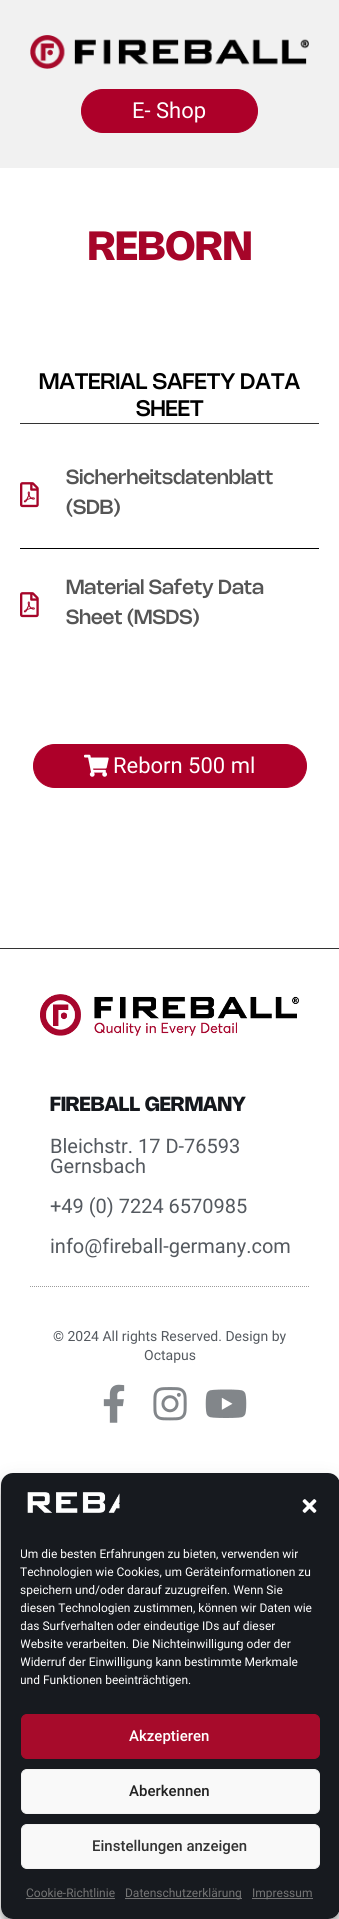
#include <cairo.h>
#include <math.h>
#include <stddef.h>

typedef struct { const char *family; double size; int italic, bold; unsigned color; } style_t;
static cairo_t *ctx;

static void ink(unsigned color) {
    cairo_set_source_rgb(ctx, (color >> 16) / 255.0, (color >> 8 & 255) / 255.0, (color & 255) / 255.0);
}

static void write(double x, double y, const char *s, const style_t *st) {
    cairo_select_font_face(ctx, st->family, st->italic ? CAIRO_FONT_SLANT_ITALIC : CAIRO_FONT_SLANT_NORMAL,
        st->bold ? CAIRO_FONT_WEIGHT_BOLD : CAIRO_FONT_WEIGHT_NORMAL);
    cairo_set_font_size(ctx, st->size);
    ink(st->color);
    cairo_move_to(ctx, x, y);
    cairo_show_text(ctx, s);
}

static void block(double x, double y, double w, double h, unsigned color) {
    ink(color);
    cairo_rectangle(ctx, x, y, w, h);
    cairo_fill(ctx);
}

static void round_path(double x, double y, double w, double h, double r) {
    cairo_new_sub_path(ctx);
    cairo_arc(ctx, x + w - r, y + h - r, r, 0, M_PI / 2);
    cairo_arc(ctx, x + r, y + h - r, r, M_PI / 2, M_PI);
    cairo_arc(ctx, x + r, y + r, r, M_PI, 1.5 * M_PI);
    cairo_arc(ctx, x + w - r, y + r, r, 1.5 * M_PI, 2 * M_PI);
    cairo_close_path(ctx);
}

static void blur_box(double x, double y, double w, double h, double r, double blur, double alpha) {
    cairo_push_group_with_content(ctx, CAIRO_CONTENT_ALPHA);
    cairo_set_operator(ctx, CAIRO_OPERATOR_SOURCE);
    for (int i = 15; i >= -15 && fmin(w, h) + blur * i / 3 > 0; i -= 2) {
        double e = blur * i / 6;
        cairo_set_source_rgba(ctx, 0, 0, 0, alpha * erfc((i - 1) / 8.5) / 2);
        round_path(x - e, y - e, w + 2 * e, h + 2 * e, fmax(0, fmin(r + e + blur * .6, fmin(w, h) / 2 + e)));
        cairo_fill(ctx);
    }
    cairo_pattern_t *soft = cairo_pop_group(ctx);
    cairo_mask(ctx, soft);
    cairo_pattern_destroy(soft);
}

static void paste(const char *path, double x, double y, double w, double h) {
    cairo_surface_t *image = cairo_image_surface_create_from_png(path);
    cairo_save(ctx);
    cairo_set_source_surface(ctx, image, x, y);
    cairo_rectangle(ctx, x, y, w, h);
    cairo_fill(ctx);
    cairo_restore(ctx);
    cairo_surface_destroy(image);
}

static const style_t s1 = {"Roboto", 22, 0, 0, 0xffffff};
static const style_t s2 = {"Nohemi", 40, 0, 1, 0xa60529};
static const style_t s3 = {"Nohemi Medium", 22, 0, 0, 0x000000};
static const style_t s4 = {"Nohemi Medium", 20, 0, 0, 0x555555};
static const style_t s5 = {"Nohemi", 20, 0, 1, 0x15181d};
static const style_t s6 = {"Roboto", 20, 0, 0, 0x54595f};
static const style_t s7 = {"Roboto", 14, 0, 0, 0x54595f};
static const style_t s8 = {"Roboto", 12, 0, 0, 0xffffff};
static const style_t s9 = {"Roboto Medium", 15, 0, 0, 0xffffff};
static const style_t s10 = {"Roboto Medium", 15, 0, 0, 0x222222};
static const style_t s11 = {"Roboto Medium", 15, 0, 0, 0x333333};
static const style_t s12 = {"Roboto", 12, 0, 0, 0x757575};

int main(void) {
    cairo_surface_t *surface = cairo_image_surface_create(CAIRO_FORMAT_RGB24, 339, 1919);
    ctx = cairo_create(surface);
    cairo_font_options_t *options = cairo_font_options_create();
    cairo_font_options_set_hint_metrics(options, CAIRO_HINT_METRICS_OFF);
    cairo_font_options_set_hint_style(options, CAIRO_HINT_STYLE_NONE);
    cairo_set_font_options(ctx, options);
    cairo_set_miter_limit(ctx, 4);
    ink(0xffffff);
    cairo_paint(ctx);
    block(0, 0, 339, 168, 0xf1f1f1);
    paste("pic1.png", 30, 35, 279, 34);
    ink(0xad0029);
    round_path(81.5, 89.5, 176, 43, 21.5);
    cairo_fill_preserve(ctx);
    cairo_set_line_width(ctx, 1);
    cairo_stroke(ctx);
    write(132, 118, "E- Shop", &s1);
    write(88, 260, "REBORN", &s2);
    block(20, 423, 299, 1, 0x333333);
    write(39, 389, "MATERIAL SAFETY DATA", &s3);
    write(136, 416, "SHEET", &s3);
    paste("pic2.png", 20, 482, 19, 26);
    write(66, 484, "Sicherheitsdatenblatt", &s4);
    write(66, 514, "(SDB)", &s4);
    block(20, 548, 299, 1, 0x000000);
    paste("pic2.png", 20, 592, 19, 26);
    write(66, 594, "Material Safety Data", &s4);
    write(66, 624, "Sheet (MSDS)", &s4);
    ink(0xad0029);
    round_path(33.5, 744.5, 273, 43, 21.5);
    cairo_fill_preserve(ctx);
    cairo_stroke(ctx);
    paste("pic3.png", 84, 754, 25, 23);
    write(113, 773, "Reborn 500 ml", &s1);
    block(0, 948, 339, 1, 0x333333);
    cairo_new_path(ctx);
    cairo_move_to(ctx, 30, 1286.5);
    cairo_line_to(ctx, 309, 1286.5);
    ink(0x9b9b9b);
    cairo_set_dash(ctx, (double[]){1, 1}, 2, 0);
    cairo_stroke(ctx);
    paste("pic4.png", 40, 994, 259, 42);
    write(50, 1111, "FIREBALL GERMANY", &s5);
    write(50, 1153, "Bleichstr. 17 D-76593", &s6);
    write(50, 1173, "Gernsbach", &s6);
    write(50, 1213, "+49 (0) 7224 6570985", &s6);
    write(50, 1253, "info@fireball-germany.com", &s6);
    write(53, 1341, "© 2024 All rights Reserved. Design by", &s7);
    write(144, 1360, "Octapus", &s7);
    paste("pic5.png", 103, 1384, 22, 39);
    paste("pic6.png", 153, 1387, 34, 34);
    paste("pic7.png", 205, 1389, 42, 29);
    cairo_save(ctx);
    cairo_set_fill_rule(ctx, CAIRO_FILL_RULE_EVEN_ODD);
    cairo_new_path(ctx);
    cairo_move_to(ctx, 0, 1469);
    cairo_line_to(ctx, 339, 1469);
    cairo_line_to(ctx, 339, 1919);
    cairo_line_to(ctx, 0, 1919);
    cairo_close_path(ctx);
    cairo_move_to(ctx, 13, 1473);
    cairo_line_to(ctx, 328, 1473);
    cairo_curve_to(ctx, 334.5, 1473, 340, 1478.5, 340, 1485);
    cairo_line_to(ctx, 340, 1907);
    cairo_curve_to(ctx, 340, 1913.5, 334.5, 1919, 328, 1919);
    cairo_line_to(ctx, 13, 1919);
    cairo_curve_to(ctx, 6.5, 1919, 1, 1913.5, 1, 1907);
    cairo_line_to(ctx, 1, 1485);
    cairo_curve_to(ctx, 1, 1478.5, 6.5, 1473, 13, 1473);
    cairo_close_path(ctx);
    cairo_clip(ctx);
    ink(0x000000);
    blur_box(1, 1479, 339, 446, 12, 3, 0.23);
    cairo_restore(ctx);
    cairo_save(ctx);
    cairo_set_fill_rule(ctx, CAIRO_FILL_RULE_EVEN_ODD);
    cairo_new_path(ctx);
    cairo_move_to(ctx, 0, 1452);
    cairo_line_to(ctx, 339, 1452);
    cairo_line_to(ctx, 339, 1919);
    cairo_line_to(ctx, 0, 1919);
    cairo_close_path(ctx);
    cairo_move_to(ctx, 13, 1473);
    cairo_line_to(ctx, 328, 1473);
    cairo_curve_to(ctx, 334.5, 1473, 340, 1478.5, 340, 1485);
    cairo_line_to(ctx, 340, 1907);
    cairo_curve_to(ctx, 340, 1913.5, 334.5, 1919, 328, 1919);
    cairo_line_to(ctx, 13, 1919);
    cairo_curve_to(ctx, 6.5, 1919, 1, 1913.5, 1, 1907);
    cairo_line_to(ctx, 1, 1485);
    cairo_curve_to(ctx, 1, 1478.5, 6.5, 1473, 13, 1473);
    cairo_close_path(ctx);
    cairo_clip(ctx);
    ink(0x000000);
    blur_box(1, 1483, 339, 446, 12, 10, 0.19);
    cairo_restore(ctx);
    ink(0x171a1f);
    round_path(1, 1473, 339, 446, 12);
    cairo_fill(ctx);
    paste("pic8.png", 27, 1492, 93, 21);
    paste("pic9.png", 302, 1499, 15, 14);
    cairo_save(ctx);
    cairo_rectangle(ctx, 21, 1545, 299, 149);
    cairo_clip(ctx);
    write(20, 1558, "Um die besten Erfahrungen zu bieten, verwenden wir", &s8);
    cairo_restore(ctx);
    write(20, 1576, "Technologien wie Cookies, um Geräteinformationen zu", &s8);
    write(20, 1594, "speichern und/oder darauf zuzugreifen. Wenn Sie", &s8);
    cairo_save(ctx);
    cairo_rectangle(ctx, 21, 1545, 299, 149);
    cairo_clip(ctx);
    write(20, 1612, "diesen Technologien zustimmen, können wir Daten wie", &s8);
    write(20, 1630, "das Surfverhalten oder eindeutige IDs auf dieser", &s8);
    write(20, 1648, "Website verarbeiten. Die Nichteinwilligung oder der", &s8);
    write(20, 1666, "Widerruf der Einwilligung kann bestimmte Merkmale", &s8);
    write(20, 1684, "und Funktionen beeinträchtigen.", &s8);
    cairo_restore(ctx);
    ink(0xa70b2b);
    round_path(21.5, 1714.5, 298, 44, 5.5);
    cairo_fill_preserve(ctx);
    cairo_set_dash(ctx, NULL, 0, 0);
    cairo_stroke(ctx);
    write(129, 1741, "Akzeptieren", &s9);
    ink(0xf9f9f9);
    round_path(21.5, 1769.5, 298, 44, 5.5);
    cairo_fill_preserve(ctx);
    ink(0xf2f2f2);
    cairo_stroke(ctx);
    write(129, 1796, "Aberkennen", &s10);
    ink(0xf9f9f9);
    round_path(21.5, 1824.5, 298, 44, 5.5);
    cairo_fill_preserve(ctx);
    ink(0xf2f2f2);
    cairo_stroke(ctx);
    write(92, 1851, "Einstellungen anzeigen", &s11);
    write(26, 1897, "Cookie-Richtlinie", &s12);
    block(26, 1898, 89, 1, 0x757575);
    block(125, 1898, 117, 1, 0x757575);
    write(125, 1897, "Datenschutzerklärung", &s12);
    block(252, 1898, 61, 1, 0x757575);
    write(252, 1897, "Impressum", &s12);
    cairo_surface_write_to_png(surface, "screenshot.png");
    cairo_font_options_destroy(options);
    cairo_destroy(ctx);
    cairo_surface_destroy(surface);
    return 0;
}
